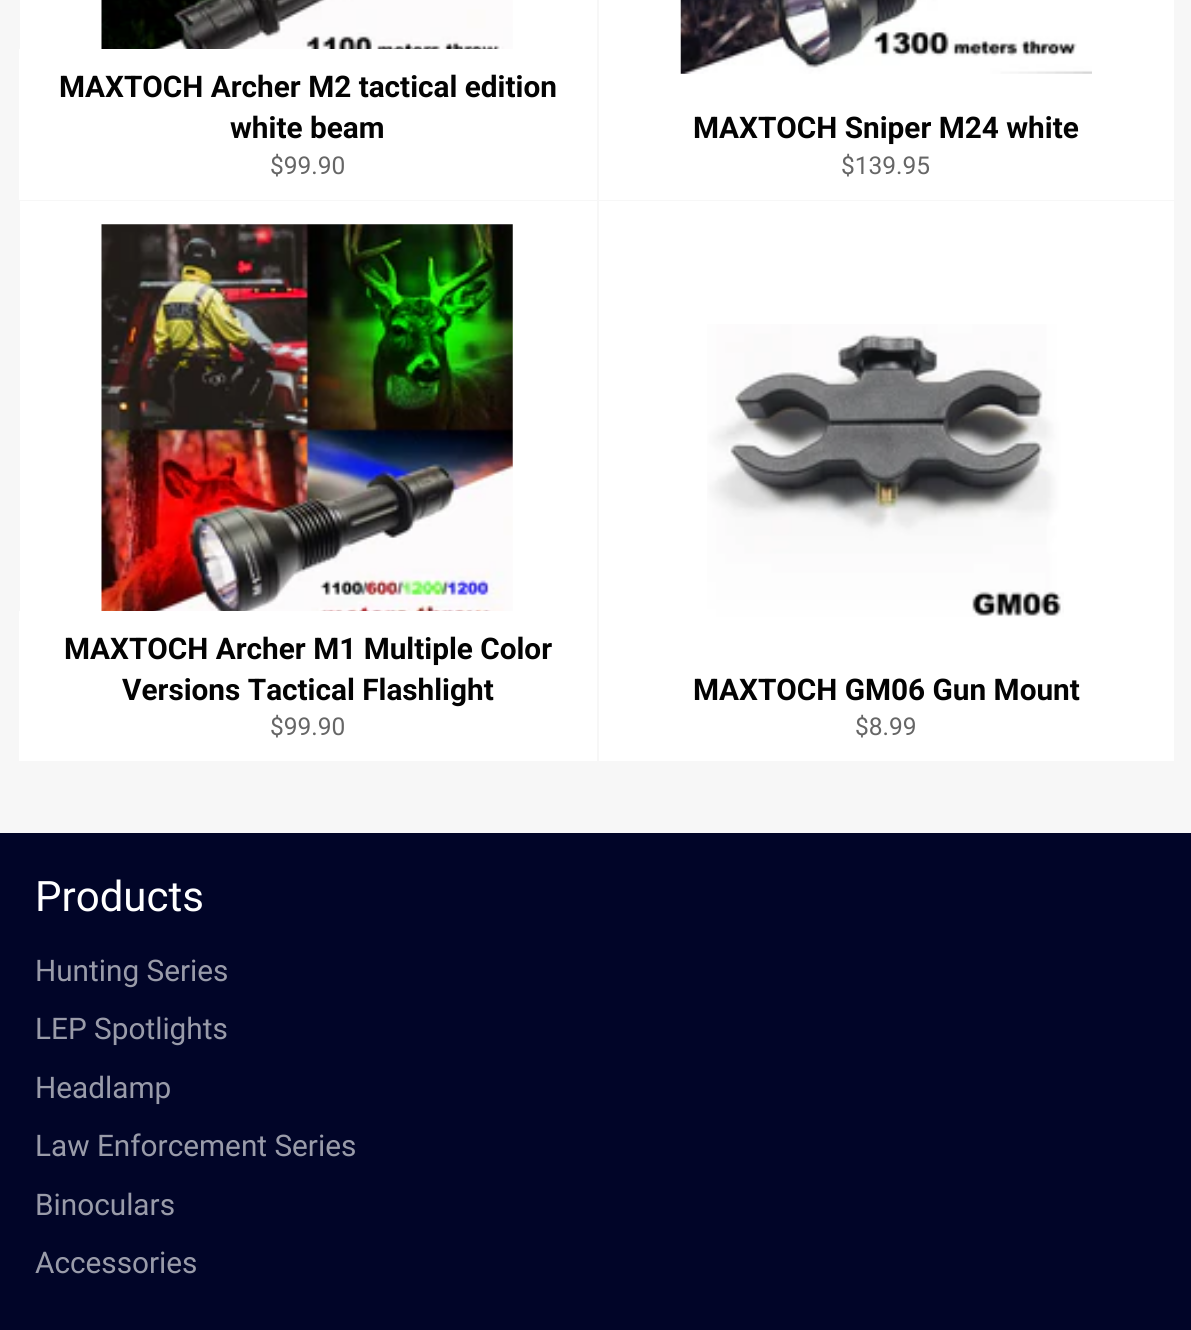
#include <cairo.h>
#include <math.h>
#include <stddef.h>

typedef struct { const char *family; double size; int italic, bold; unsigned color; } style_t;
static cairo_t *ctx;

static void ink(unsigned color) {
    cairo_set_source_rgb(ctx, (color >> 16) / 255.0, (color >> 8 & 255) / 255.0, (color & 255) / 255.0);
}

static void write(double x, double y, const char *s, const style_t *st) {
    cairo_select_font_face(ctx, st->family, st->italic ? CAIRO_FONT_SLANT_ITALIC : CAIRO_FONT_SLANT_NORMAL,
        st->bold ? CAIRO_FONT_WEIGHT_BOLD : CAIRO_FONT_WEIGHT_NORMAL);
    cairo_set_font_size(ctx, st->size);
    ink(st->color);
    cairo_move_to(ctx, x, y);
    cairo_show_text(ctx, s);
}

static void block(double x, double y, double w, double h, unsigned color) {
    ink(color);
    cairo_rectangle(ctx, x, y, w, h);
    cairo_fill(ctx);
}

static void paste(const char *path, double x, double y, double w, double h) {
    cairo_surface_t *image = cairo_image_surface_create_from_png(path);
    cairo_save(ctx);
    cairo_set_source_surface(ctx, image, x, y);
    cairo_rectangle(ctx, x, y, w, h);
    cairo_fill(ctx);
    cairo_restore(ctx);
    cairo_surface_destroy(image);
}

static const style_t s1 = {"Roboto", 29.75, 0, 1, 0x030303};
static const style_t s2 = {"Roboto", 24.5, 0, 0, 0x666666};
static const style_t s3 = {"Roboto", 42, 0, 0, 0xffffff};
static const style_t s4 = {"Roboto", 29.75, 0, 0, 0x999ba9};

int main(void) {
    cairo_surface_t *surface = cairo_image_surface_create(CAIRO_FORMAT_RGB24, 1191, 1330);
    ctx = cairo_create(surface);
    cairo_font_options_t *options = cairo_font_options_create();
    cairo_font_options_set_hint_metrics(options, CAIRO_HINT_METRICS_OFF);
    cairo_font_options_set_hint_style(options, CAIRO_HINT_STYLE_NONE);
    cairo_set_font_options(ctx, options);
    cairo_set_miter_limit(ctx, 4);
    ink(0xf7f7f7);
    cairo_paint(ctx);
    block(20, 0, 577, 49, 0xffffff);
    paste("pic1.png", 101, 0, 412, 49);
    block(19, 49, 578, 151, 0xffffff);
    write(59, 97, "MAXTOCH Archer M2 tactical edition", &s1);
    write(230, 138, "white beam", &s1);
    write(270, 174, "$99.90", &s2);
    block(599, 0, 575, 200, 0xffffff);
    paste("pic2.png", 680, 0, 412, 74);
    write(693, 138, "MAXTOCH Sniper M24 white", &s1);
    write(841, 174, "$139.95", &s2);
    block(20, 201, 577, 410, 0xffffff);
    paste("pic3.png", 101, 224, 412, 387);
    block(19, 611, 578, 150, 0xffffff);
    write(64, 659, "MAXTOCH Archer M1 Multiple Color", &s1);
    write(122, 700, "Versions Tactical Flashlight", &s1);
    write(270, 735, "$99.90", &s2);
    block(599, 201, 575, 560, 0xffffff);
    paste("pic4.png", 707, 324, 357, 293);
    write(693, 700, "MAXTOCH GM06 Gun Mount", &s1);
    write(855, 735, "$8.99", &s2);
    block(0, 833, 1191, 497, 0x010528);
    write(35, 911, "Products", &s3);
    write(35, 981, "Hunting Series", &s4);
    write(35, 1039, "LEP Spotlights", &s4);
    write(35, 1098, "Headlamp", &s4);
    write(35, 1156, "Law Enforcement Series", &s4);
    write(35, 1215, "Binoculars", &s4);
    write(35, 1273, "Accessories", &s4);
    cairo_surface_write_to_png(surface, "screenshot.png");
    cairo_font_options_destroy(options);
    cairo_destroy(ctx);
    cairo_surface_destroy(surface);
    return 0;
}
